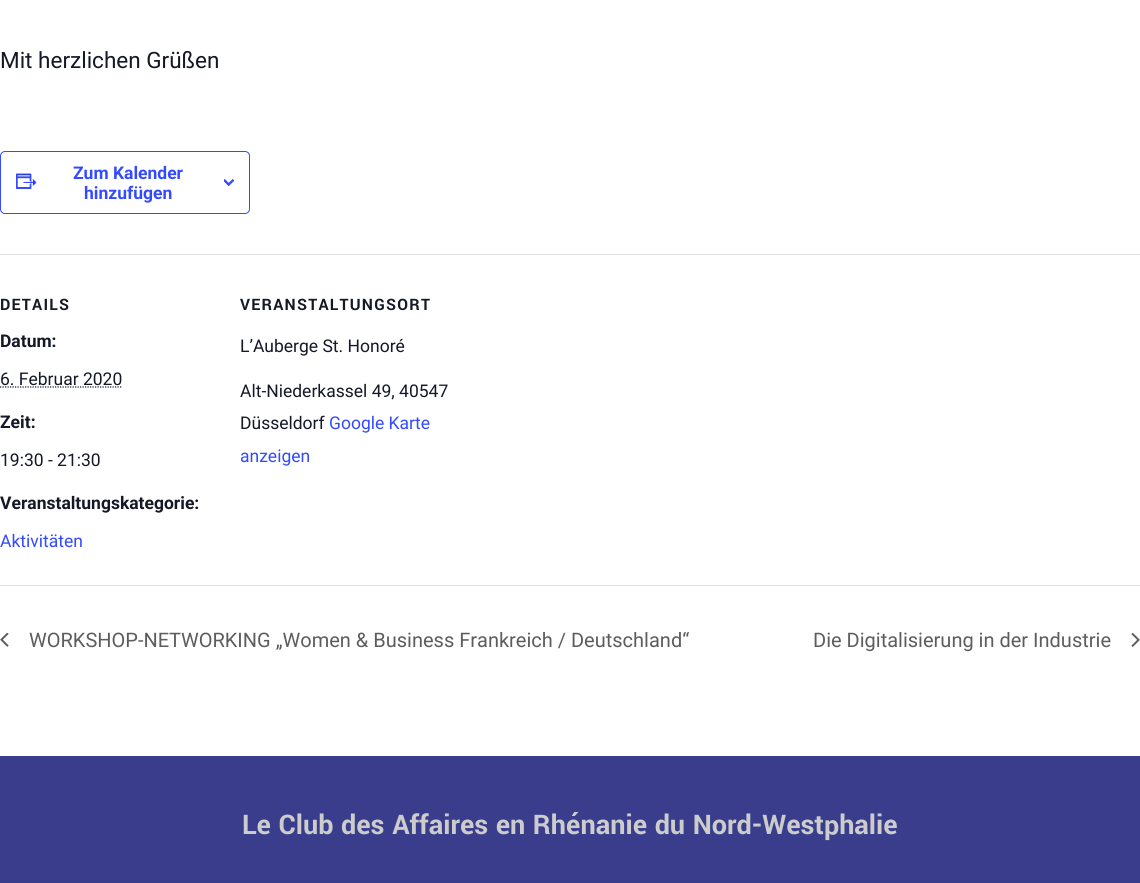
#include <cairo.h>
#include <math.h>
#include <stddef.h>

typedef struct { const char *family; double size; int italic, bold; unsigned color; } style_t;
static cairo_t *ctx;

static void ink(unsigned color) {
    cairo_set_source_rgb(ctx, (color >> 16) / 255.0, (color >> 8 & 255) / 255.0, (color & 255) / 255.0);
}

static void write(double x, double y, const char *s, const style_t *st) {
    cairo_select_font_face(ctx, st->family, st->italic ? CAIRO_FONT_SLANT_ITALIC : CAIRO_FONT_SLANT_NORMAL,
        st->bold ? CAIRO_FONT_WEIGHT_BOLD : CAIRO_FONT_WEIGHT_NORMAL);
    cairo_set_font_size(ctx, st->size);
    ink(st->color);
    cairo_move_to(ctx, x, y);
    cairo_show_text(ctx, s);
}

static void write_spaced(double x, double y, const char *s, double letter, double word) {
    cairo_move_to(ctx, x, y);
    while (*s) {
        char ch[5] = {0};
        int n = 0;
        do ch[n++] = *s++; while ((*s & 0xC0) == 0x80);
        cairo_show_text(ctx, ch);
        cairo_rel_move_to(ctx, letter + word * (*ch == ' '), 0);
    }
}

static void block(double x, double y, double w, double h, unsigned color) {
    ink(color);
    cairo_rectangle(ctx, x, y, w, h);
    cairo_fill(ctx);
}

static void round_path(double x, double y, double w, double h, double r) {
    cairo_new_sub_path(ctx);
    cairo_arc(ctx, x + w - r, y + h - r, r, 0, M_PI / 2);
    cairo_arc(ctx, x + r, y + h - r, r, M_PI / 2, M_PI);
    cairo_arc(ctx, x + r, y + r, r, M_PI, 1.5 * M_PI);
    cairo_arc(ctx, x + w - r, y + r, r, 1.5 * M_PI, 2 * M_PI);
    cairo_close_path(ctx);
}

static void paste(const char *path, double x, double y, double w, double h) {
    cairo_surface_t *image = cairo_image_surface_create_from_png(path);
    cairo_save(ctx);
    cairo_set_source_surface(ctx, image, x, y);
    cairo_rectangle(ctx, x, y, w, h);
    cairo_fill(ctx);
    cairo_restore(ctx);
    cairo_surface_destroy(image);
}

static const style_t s1 = {"Roboto", 22.5, 0, 0, 0x141827};
static const style_t s2 = {"Roboto", 17.5, 0, 1, 0x334aff};
static const style_t s3 = {"Roboto", 17.5, 0, 1, 0x141827};
static const style_t s4 = {"Roboto", 17.5, 0, 0, 0x141827};
static const style_t s5 = {"Roboto", 17.5, 0, 0, 0x334aff};
static const style_t s6 = {"Roboto", 20, 0, 0, 0x5d5d5d};
static const style_t s7 = {"Yantramanav", 30, 0, 1, 0xcccccc};

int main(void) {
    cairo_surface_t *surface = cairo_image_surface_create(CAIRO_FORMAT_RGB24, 1140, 883);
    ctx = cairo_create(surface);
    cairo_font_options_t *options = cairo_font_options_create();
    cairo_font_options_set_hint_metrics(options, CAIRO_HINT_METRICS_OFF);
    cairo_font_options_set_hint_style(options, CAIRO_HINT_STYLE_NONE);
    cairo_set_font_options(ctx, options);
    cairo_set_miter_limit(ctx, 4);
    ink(0xffffff);
    cairo_paint(ctx);
    write(0, 68, "Mit herzlichen Grüßen", &s1);
    round_path(0.5, 151.5, 249, 62, 4.5);
    ink(0x334aff);
    cairo_set_line_width(ctx, 1);
    cairo_stroke(ctx);
    paste("pic1.png", 16, 173, 21, 16);
    write(73, 179, "Zum Kalender", &s2);
    write(84, 199, "hinzufügen", &s2);
    paste("pic2.png", 224, 179, 10, 7);
    block(0, 254, 1140, 1, 0xe4e4e4);
    cairo_select_font_face(ctx, "Yantramanav", CAIRO_FONT_SLANT_NORMAL, CAIRO_FONT_WEIGHT_BOLD);
    ink(0x141827);
    write_spaced(0, 310, "DETAILS", 1.25, 0);
    write(0, 347, "Datum:", &s3);
    write(0, 385, "6. Februar 2020", &s4);
    cairo_new_path(ctx);
    cairo_move_to(ctx, 0, 387);
    cairo_line_to(ctx, 122.5, 387);
    cairo_set_line_width(ctx, 1.2);
    cairo_set_dash(ctx, (double[]){1.25, 1.25}, 2, 0);
    cairo_stroke(ctx);
    write(0, 428, "Zeit:", &s3);
    write(0, 466, "19:30 - 21:30", &s4);
    write(0, 509, "Veranstaltungskategorie:", &s3);
    write(0, 547, "Aktivitäten", &s5);
    cairo_select_font_face(ctx, "Yantramanav", CAIRO_FONT_SLANT_NORMAL, CAIRO_FONT_WEIGHT_BOLD);
    ink(0x141827);
    write_spaced(240, 310, "VERANSTALTUNGSORT", 1.25, 0);
    write(240, 352, "L’Auberge St. Honoré", &s4);
    write(240, 397, "Alt-Niederkassel 49, 40547", &s4);
    write(240, 429, "Düsseldorf", &s4);
    write(329, 429, "Google Karte", &s5);
    write(240, 462, "anzeigen", &s5);
    block(0, 585, 1140, 1, 0xe4e4e4);
    paste("pic3.png", 0, 633, 9, 14);
    write(29, 647, "WORKSHOP-NETWORKING „Women & Business Frankreich / Deutschland“", &s6);
    write(813, 647, "Die Digitalisierung in der Industrie", &s6);
    paste("pic4.png", 1131, 633, 9, 14);
    block(0, 756, 1140, 127, 0x3a3d8c);
    write(242, 834, "Le Club des Affaires en Rhénanie du Nord-Westphalie", &s7);
    cairo_surface_write_to_png(surface, "screenshot.png");
    cairo_font_options_destroy(options);
    cairo_destroy(ctx);
    cairo_surface_destroy(surface);
    return 0;
}
